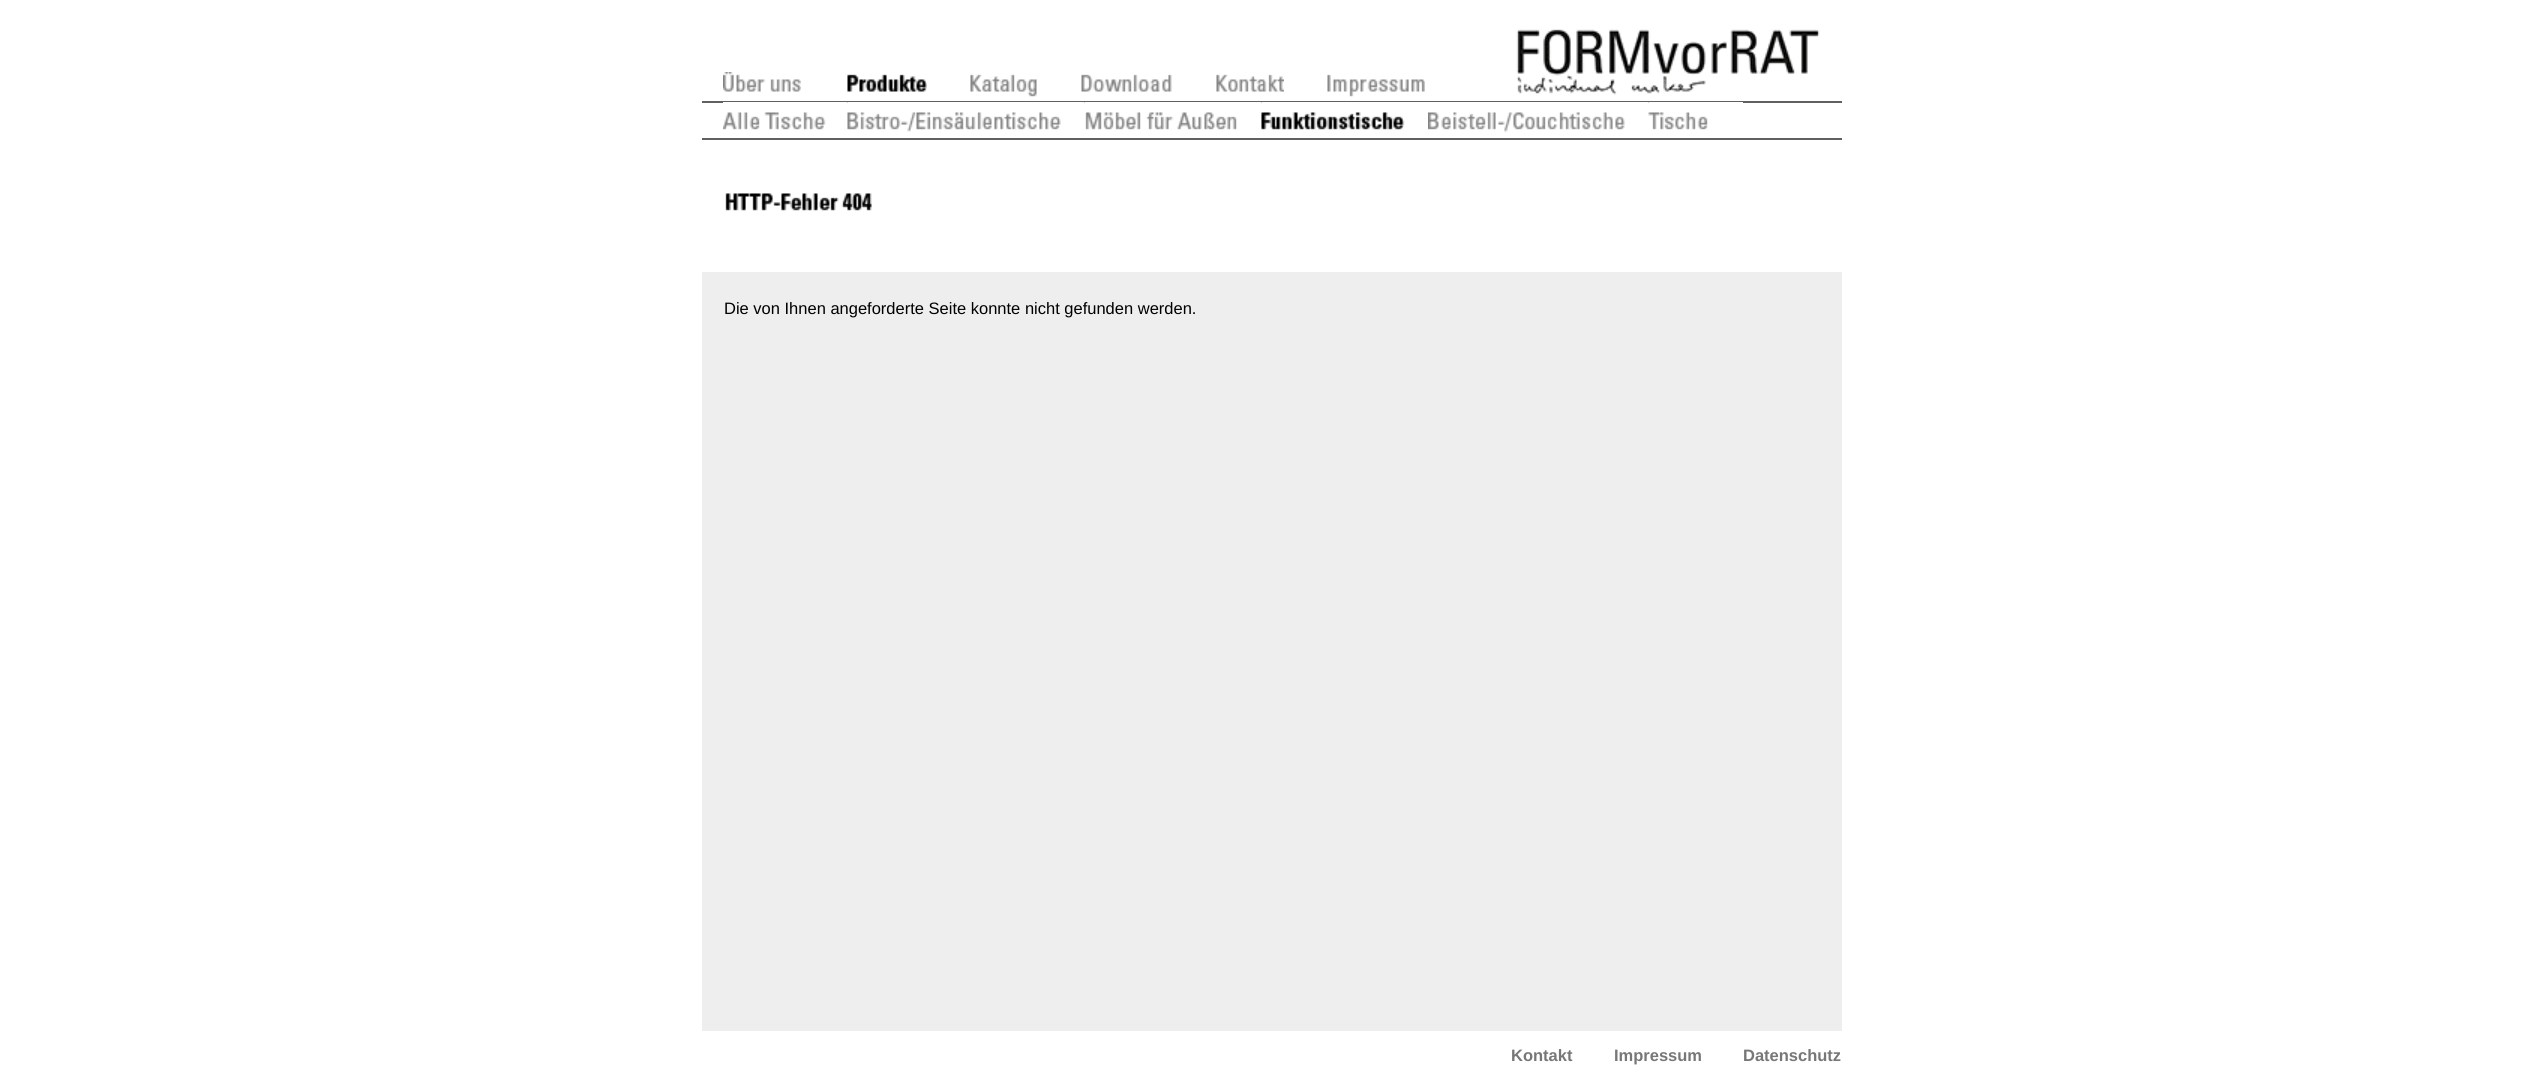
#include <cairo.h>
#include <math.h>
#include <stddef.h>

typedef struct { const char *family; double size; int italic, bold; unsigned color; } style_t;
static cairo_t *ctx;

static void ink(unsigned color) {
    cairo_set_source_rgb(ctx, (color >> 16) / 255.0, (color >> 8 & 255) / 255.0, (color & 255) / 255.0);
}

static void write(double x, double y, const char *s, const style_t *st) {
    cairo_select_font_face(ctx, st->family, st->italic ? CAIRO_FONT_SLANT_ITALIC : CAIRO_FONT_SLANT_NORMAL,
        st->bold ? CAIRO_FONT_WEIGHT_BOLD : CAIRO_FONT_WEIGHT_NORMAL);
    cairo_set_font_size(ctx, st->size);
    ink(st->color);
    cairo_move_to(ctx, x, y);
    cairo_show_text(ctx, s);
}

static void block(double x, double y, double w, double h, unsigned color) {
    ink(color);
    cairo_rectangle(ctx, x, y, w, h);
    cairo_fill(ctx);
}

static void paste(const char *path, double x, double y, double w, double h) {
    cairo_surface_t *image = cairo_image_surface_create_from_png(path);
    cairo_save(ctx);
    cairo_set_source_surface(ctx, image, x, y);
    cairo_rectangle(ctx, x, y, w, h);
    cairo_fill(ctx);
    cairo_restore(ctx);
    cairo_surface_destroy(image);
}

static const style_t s1 = {"Liberation Sans", 16.5, 0, 0, 0x000000};
static const style_t s2 = {"Liberation Sans", 16.5, 0, 1, 0x777777};

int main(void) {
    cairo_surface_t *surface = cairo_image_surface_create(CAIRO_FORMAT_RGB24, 2542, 1072);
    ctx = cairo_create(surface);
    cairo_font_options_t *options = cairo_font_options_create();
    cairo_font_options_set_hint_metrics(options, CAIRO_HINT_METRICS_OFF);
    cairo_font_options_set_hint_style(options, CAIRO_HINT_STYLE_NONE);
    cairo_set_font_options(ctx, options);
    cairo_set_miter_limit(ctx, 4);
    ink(0xffffff);
    cairo_paint(ctx);
    block(723, 101, 80, 1, 0x606060);
    paste("pic1.png", 723, 72, 78, 20);
    block(848, 101, 234, 1, 0x606060);
    paste("pic2.png", 847, 74, 80, 18);
    block(1512, 101, 330, 2, 0x606060);
    paste("pic3.png", 1516, 29, 304, 66);
    paste("pic4.png", 970, 74, 67, 23);
    block(1082, 101, 90, 2, 0x606060);
    paste("pic5.png", 1081, 74, 91, 18);
    block(1217, 101, 67, 2, 0x606060);
    paste("pic6.png", 1216, 74, 68, 18);
    paste("pic7.png", 1327, 74, 98, 23);
    block(702, 101, 21, 2, 0x606060);
    block(803, 101, 45, 2, 0x606060);
    block(1172, 101, 45, 1, 0x606060);
    block(1284, 101, 228, 1, 0x606060);
    paste("pic8.png", 723, 102, 125, 28);
    paste("pic9.png", 847, 102, 238, 30);
    paste("pic10.png", 1084, 102, 178, 28);
    paste("pic11.png", 1261, 102, 167, 28);
    paste("pic12.png", 1428, 102, 221, 31);
    paste("pic13.png", 1648, 102, 95, 28);
    block(702, 138, 1140, 2, 0x606060);
    block(702, 272, 1140, 759, 0xeeeeee);
    paste("pic14.png", 725, 193, 147, 18);
    write(724, 314, "Die von Ihnen angeforderte Seite konnte nicht gefunden werden.", &s1);
    write(1511, 1061, "Kontakt", &s2);
    write(1614, 1061, "Impressum", &s2);
    write(1743, 1061, "Datenschutz", &s2);
    cairo_surface_write_to_png(surface, "screenshot.png");
    cairo_font_options_destroy(options);
    cairo_destroy(ctx);
    cairo_surface_destroy(surface);
    return 0;
}
